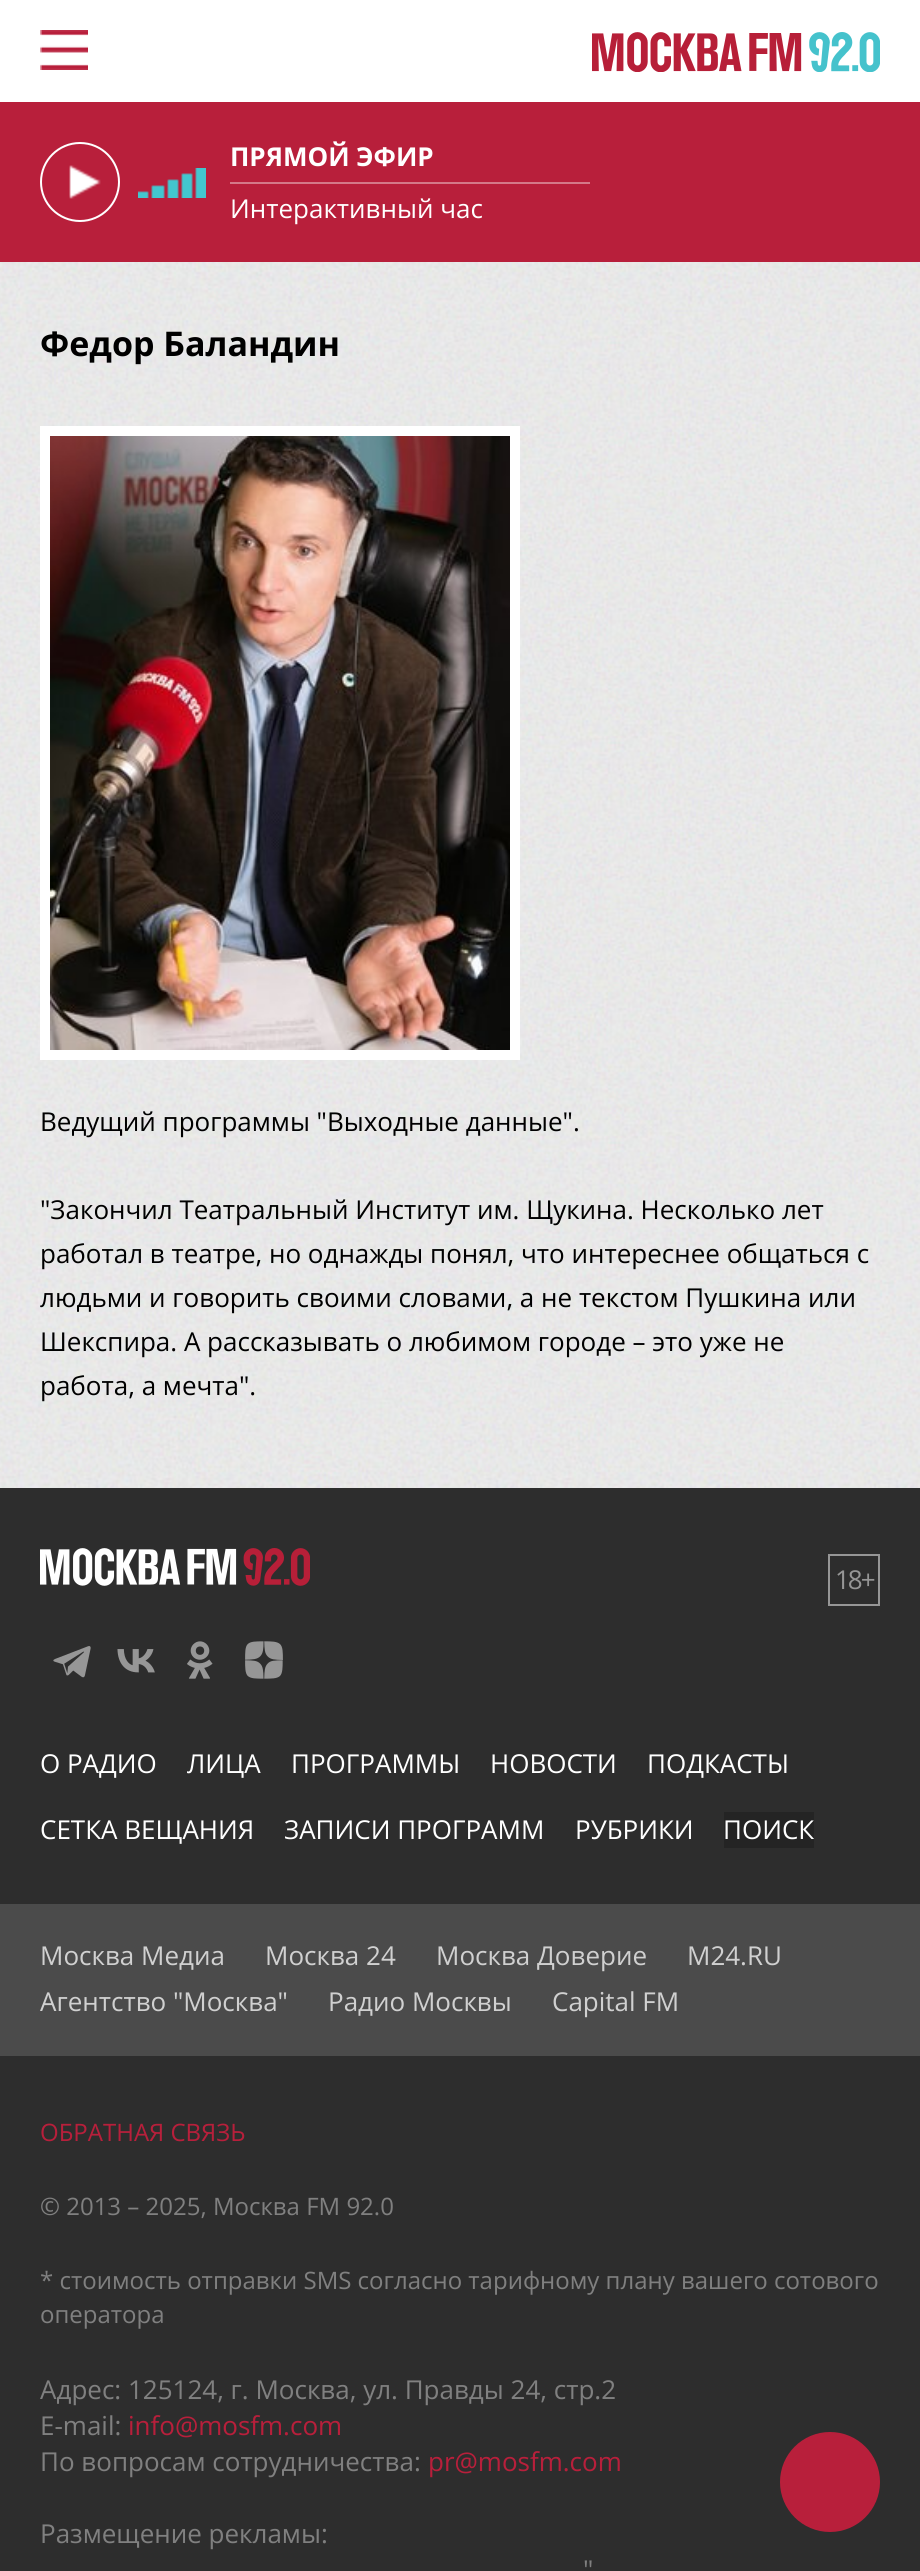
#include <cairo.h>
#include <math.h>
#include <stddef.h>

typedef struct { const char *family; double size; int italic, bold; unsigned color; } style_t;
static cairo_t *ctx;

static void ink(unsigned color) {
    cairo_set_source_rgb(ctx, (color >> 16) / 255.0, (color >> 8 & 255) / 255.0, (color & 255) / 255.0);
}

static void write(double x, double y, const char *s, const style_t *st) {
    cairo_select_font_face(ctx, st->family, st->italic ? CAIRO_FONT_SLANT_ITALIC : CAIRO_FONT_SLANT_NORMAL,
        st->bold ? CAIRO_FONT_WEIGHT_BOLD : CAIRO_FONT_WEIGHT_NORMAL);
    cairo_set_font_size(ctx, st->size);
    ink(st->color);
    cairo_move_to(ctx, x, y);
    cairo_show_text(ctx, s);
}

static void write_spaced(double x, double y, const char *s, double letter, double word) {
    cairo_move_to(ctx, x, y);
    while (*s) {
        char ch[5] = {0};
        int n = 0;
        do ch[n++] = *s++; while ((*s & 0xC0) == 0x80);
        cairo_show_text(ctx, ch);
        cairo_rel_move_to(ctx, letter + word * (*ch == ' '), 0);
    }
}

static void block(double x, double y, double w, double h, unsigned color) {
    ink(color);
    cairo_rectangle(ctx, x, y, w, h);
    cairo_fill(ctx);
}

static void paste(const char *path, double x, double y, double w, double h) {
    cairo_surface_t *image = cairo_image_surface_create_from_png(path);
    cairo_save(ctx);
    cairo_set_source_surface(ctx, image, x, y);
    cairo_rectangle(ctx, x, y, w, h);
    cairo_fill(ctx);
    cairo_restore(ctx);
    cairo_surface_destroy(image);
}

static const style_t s1 = {"Open Sans", 26, 0, 1, 0xffffff};
static const style_t s2 = {"Open Sans", 26, 0, 0, 0xffffff};
static const style_t s3 = {"Open Sans", 34, 0, 1, 0x000000};
static const style_t s4 = {"Open Sans", 26, 0, 0, 0x000000};
static const style_t s5 = {"Open Sans", 26, 0, 0, 0xd0d0d0};
static const style_t s6 = {"Open Sans", 24, 0, 0, 0xb81f3b};
static const style_t s7 = {"Open Sans", 24, 0, 0, 0x808080};
static const style_t s8 = {"Open Sans", 26, 0, 0, 0x808080};
static const style_t s9 = {"Open Sans", 26, 0, 0, 0xb81f3b};

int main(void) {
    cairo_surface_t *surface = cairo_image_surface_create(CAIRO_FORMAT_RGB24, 920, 2571);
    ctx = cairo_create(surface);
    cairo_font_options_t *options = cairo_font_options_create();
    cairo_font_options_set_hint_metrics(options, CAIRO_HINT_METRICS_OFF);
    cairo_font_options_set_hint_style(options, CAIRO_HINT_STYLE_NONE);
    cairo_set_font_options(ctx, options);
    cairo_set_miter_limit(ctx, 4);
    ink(0xffffff);
    cairo_paint(ctx);
    paste("pic1.png", 0, 262, 920, 1226);
    paste("pic2.png", 40, 30, 48, 40);
    paste("pic3.png", 592, 32, 288, 40);
    block(0, 102, 920, 160, 0xb81f3b);
    paste("pic4.png", 69, 165, 32, 34);
    cairo_arc(ctx, 80, 182, 39, 0, 2 * M_PI);
    ink(0xffffff);
    cairo_stroke(ctx);
    paste("pic5.png", 138, 168, 59, 30);
    paste("pic6.png", 138, 168, 68, 30);
    block(230, 182, 360, 2, 0xd47989);
    write(230, 166, "ПРЯМОЙ ЭФИР", &s1);
    write(230, 218, "Интерактивный час", &s2);
    write(40, 356, "Федор Баландин", &s3);
    cairo_rectangle(ctx, 45, 431, 470, 624);
    ink(0xffffff);
    cairo_set_line_width(ctx, 10);
    cairo_stroke(ctx);
    paste("pic7.png", 50, 436, 460, 614);
    write(40, 1131, "Ведущий программы \"Выходные данные\".", &s4);
    write(40, 1219, "\"Закончил Театральный Институт им. Щукина. Несколько лет", &s4);
    write(40, 1263, "работал в театре, но однажды понял, что интереснее общаться с", &s4);
    write(40, 1307, "людьми и говорить своими словами, а не текстом Пушкина или", &s4);
    write(40, 1351, "Шекспира. А рассказывать о любимом городе – это уже не", &s4);
    write(40, 1395, "работа, а мечта\".", &s4);
    block(0, 1488, 920, 1083, 0x2d2d2d);
    paste("pic8.png", 40, 1548, 270, 38);
    cairo_rectangle(ctx, 829, 1555, 50, 50);
    ink(0x969696);
    cairo_set_line_width(ctx, 2);
    cairo_stroke(ctx);
    write_spaced(835, 1589, "18+", -2, 0);
    paste("pic9.png", 53, 1646, 38, 32);
    paste("pic10.png", 117, 1649, 38, 24);
    paste("pic11.png", 187, 1641, 26, 38);
    paste("pic12.png", 245, 1641, 38, 38);
    write(40, 1773, "О РАДИО", &s2);
    write(187, 1773, "ЛИЦА", &s2);
    write(291, 1773, "ПРОГРАММЫ", &s2);
    write(490, 1773, "НОВОСТИ", &s2);
    write(647, 1773, "ПОДКАСТЫ", &s2);
    write(40, 1839, "СЕТКА ВЕЩАНИЯ", &s2);
    write(284, 1839, "ЗАПИСИ ПРОГРАММ", &s2);
    write(575, 1839, "РУБРИКИ", &s2);
    block(724, 1812, 90, 36, 0x242424);
    write(723, 1839, "ПОИСК", &s2);
    block(0, 1904, 920, 152, 0x4b4b4b);
    write(40, 1965, "Москва Медиа", &s5);
    write(265, 1965, "Москва 24", &s5);
    write(436, 1965, "Москва Доверие", &s5);
    write(687, 1965, "М24.RU", &s5);
    write(40, 2011, "Агентство \"Москва\"", &s5);
    write(328, 2011, "Радио Москвы", &s5);
    write(552, 2011, "Capital FM", &s5);
    write(40, 2141, "ОБРАТНАЯ СВЯЗЬ", &s6);
    write(40, 2215, "© 2013 – 2025, Москва FM 92.0", &s7);
    write(40, 2289, "* стоимость отправки SMS согласно тарифному плану вашего сотового", &s7);
    write(40, 2323, "оператора", &s7);
    write(40, 2399, "Адрес: 125124, г. Москва, ул. Правды 24, стр.2", &s8);
    write(40, 2435, "E-mail:", &s8);
    write(128, 2435, "info@mosfm.com", &s9);
    write(40, 2471, "По вопросам сотрудничества:", &s8);
    write(428, 2471, "pr@mosfm.com", &s9);
    write(40, 2543, "Размещение рекламы:", &s8);
    write(583, 2579, "\"", &s8);
    ink(0xb81f3b);
    cairo_new_path(ctx);
    cairo_arc(ctx, 830, 2482, 50, 0, 2 * M_PI);
    cairo_fill(ctx);
    cairo_surface_write_to_png(surface, "screenshot.png");
    cairo_font_options_destroy(options);
    cairo_destroy(ctx);
    cairo_surface_destroy(surface);
    return 0;
}
